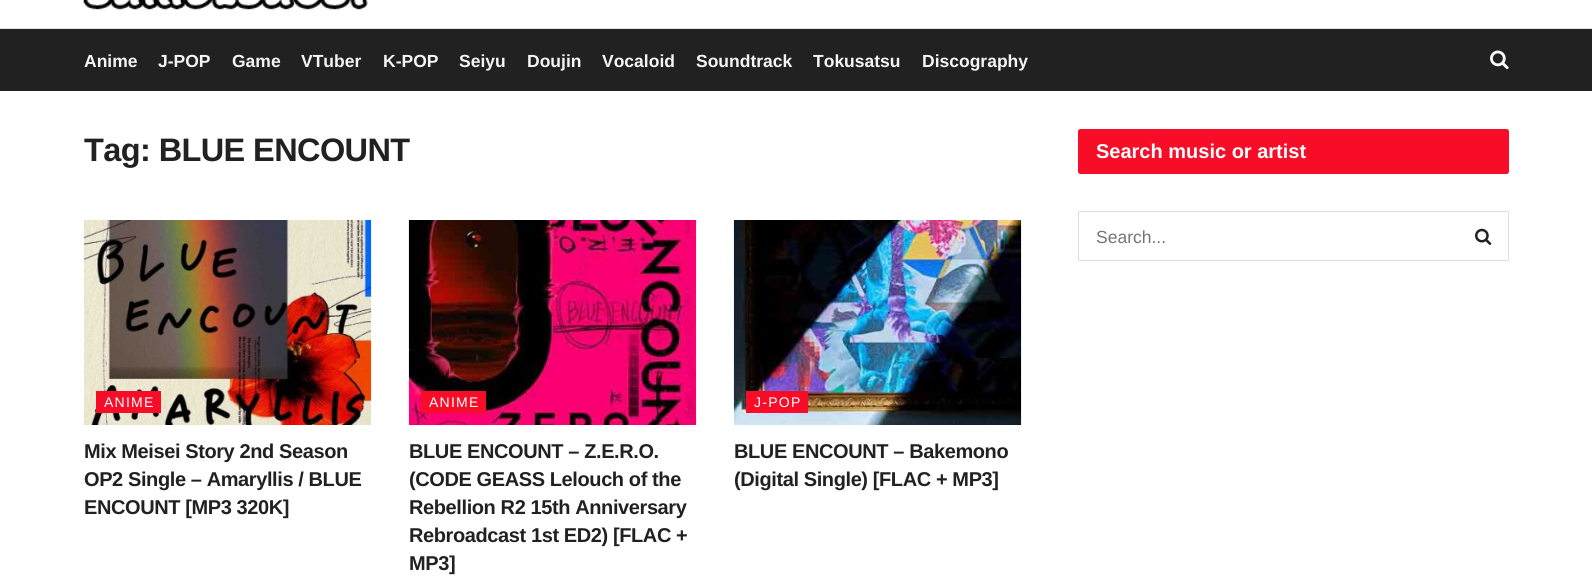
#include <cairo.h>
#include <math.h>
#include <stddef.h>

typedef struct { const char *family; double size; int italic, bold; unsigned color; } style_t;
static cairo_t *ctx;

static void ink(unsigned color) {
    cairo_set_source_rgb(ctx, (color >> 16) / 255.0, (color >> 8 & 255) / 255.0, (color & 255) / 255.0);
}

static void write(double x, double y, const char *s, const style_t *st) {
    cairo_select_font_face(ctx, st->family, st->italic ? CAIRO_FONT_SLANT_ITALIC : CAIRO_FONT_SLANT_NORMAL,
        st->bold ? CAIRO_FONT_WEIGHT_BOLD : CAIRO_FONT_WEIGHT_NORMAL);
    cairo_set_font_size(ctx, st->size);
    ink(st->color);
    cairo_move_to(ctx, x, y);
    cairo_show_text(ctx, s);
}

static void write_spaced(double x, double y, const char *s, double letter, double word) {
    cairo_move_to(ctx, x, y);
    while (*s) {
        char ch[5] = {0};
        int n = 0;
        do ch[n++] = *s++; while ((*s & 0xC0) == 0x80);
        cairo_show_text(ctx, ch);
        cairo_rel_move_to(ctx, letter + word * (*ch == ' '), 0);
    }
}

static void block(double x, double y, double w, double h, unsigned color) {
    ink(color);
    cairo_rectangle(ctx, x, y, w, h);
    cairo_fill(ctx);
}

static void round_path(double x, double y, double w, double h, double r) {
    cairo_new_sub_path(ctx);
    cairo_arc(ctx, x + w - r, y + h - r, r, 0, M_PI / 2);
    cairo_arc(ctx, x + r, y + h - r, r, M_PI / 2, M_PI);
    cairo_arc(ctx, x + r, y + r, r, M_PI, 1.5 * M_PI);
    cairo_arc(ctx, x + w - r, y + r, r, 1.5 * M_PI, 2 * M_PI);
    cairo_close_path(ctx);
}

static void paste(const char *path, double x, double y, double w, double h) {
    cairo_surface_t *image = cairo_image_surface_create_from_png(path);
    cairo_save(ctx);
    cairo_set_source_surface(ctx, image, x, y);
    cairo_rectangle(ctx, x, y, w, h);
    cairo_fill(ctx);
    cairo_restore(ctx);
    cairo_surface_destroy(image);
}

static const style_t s1 = {"Liberation Sans", 17.5, 0, 1, 0xf5f5f5};
static const style_t s2 = {"Liberation Sans", 20, 0, 1, 0xffffff};
static const style_t s3 = {"Liberation Sans", 17.5, 0, 0, 0x757575};

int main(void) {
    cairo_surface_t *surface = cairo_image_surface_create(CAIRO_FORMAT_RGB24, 1592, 581);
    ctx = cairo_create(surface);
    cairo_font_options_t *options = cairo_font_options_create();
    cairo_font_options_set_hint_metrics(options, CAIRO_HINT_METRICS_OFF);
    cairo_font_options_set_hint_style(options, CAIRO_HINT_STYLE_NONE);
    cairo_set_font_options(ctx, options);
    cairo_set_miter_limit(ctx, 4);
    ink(0xffffff);
    cairo_paint(ctx);
    block(0, 28, 1592, 1, 0xe0e0e0);
    paste("pic1.png", 83, 0, 285, 10);
    block(0, 29, 1592, 62, 0x212121);
    write(84, 67, "Anime", &s1);
    write(158, 67, "J-POP", &s1);
    write(232, 67, "Game", &s1);
    write(301, 67, "VTuber", &s1);
    write(383, 67, "K-POP", &s1);
    write(459, 67, "Seiyu", &s1);
    write(527, 67, "Doujin", &s1);
    write(602, 67, "Vocaloid", &s1);
    write(696, 67, "Soundtrack", &s1);
    write(813, 67, "Tokusatsu", &s1);
    write(922, 67, "Discography", &s1);
    paste("pic2.png", 1490, 50, 19, 20);
    cairo_set_font_size(ctx, 32.5);
    ink(0x212121);
    write_spaced(84, 161, "Tag: BLUE ENCOUNT", -0.6, 0);
    paste("pic3.png", 83, 220, 289, 205);
    block(96, 391, 65, 22, 0xf70d28);
    cairo_select_font_face(ctx, "Liberation Sans", CAIRO_FONT_SLANT_NORMAL, CAIRO_FONT_WEIGHT_NORMAL);
    cairo_set_font_size(ctx, 14);
    ink(0xffffff);
    write_spaced(104, 407, "ANIME", 1.25, 0);
    cairo_select_font_face(ctx, "Liberation Sans", CAIRO_FONT_SLANT_NORMAL, CAIRO_FONT_WEIGHT_BOLD);
    cairo_set_font_size(ctx, 20);
    ink(0x212121);
    write_spaced(84, 458, "Mix Meisei Story 2nd Season", -0.4, 0);
    write_spaced(84, 486, "OP2 Single – Amaryllis / BLUE", -0.4, 0);
    write_spaced(84, 514, "ENCOUNT [MP3 320K]", -0.4, 0);
    paste("pic4.png", 408, 220, 289, 205);
    block(421, 391, 65, 22, 0xf70d28);
    cairo_select_font_face(ctx, "Liberation Sans", CAIRO_FONT_SLANT_NORMAL, CAIRO_FONT_WEIGHT_NORMAL);
    cairo_set_font_size(ctx, 14);
    ink(0xffffff);
    write_spaced(429, 407, "ANIME", 1.25, 0);
    cairo_select_font_face(ctx, "Liberation Sans", CAIRO_FONT_SLANT_NORMAL, CAIRO_FONT_WEIGHT_BOLD);
    cairo_set_font_size(ctx, 20);
    ink(0x212121);
    write_spaced(409, 458, "BLUE ENCOUNT – Z.E.R.O.", -0.4, 0);
    write_spaced(409, 486, "(CODE GEASS Lelouch of the", -0.4, 0);
    write_spaced(409, 514, "Rebellion R2 15th Anniversary", -0.4, 0);
    write_spaced(409, 542, "Rebroadcast 1st ED2) [FLAC +", -0.4, 0);
    write_spaced(409, 570, "MP3]", -0.4, 0);
    paste("pic5.png", 733, 220, 289, 205);
    block(746, 391, 62, 22, 0xf70d28);
    cairo_select_font_face(ctx, "Liberation Sans", CAIRO_FONT_SLANT_NORMAL, CAIRO_FONT_WEIGHT_NORMAL);
    cairo_set_font_size(ctx, 14);
    ink(0xffffff);
    write_spaced(754, 407, "J-POP", 1.25, 0);
    cairo_select_font_face(ctx, "Liberation Sans", CAIRO_FONT_SLANT_NORMAL, CAIRO_FONT_WEIGHT_BOLD);
    cairo_set_font_size(ctx, 20);
    ink(0x212121);
    write_spaced(734, 458, "BLUE ENCOUNT – Bakemono", -0.4, 0);
    write_spaced(734, 486, "(Digital Single) [FLAC + MP3]", -0.4, 0);
    ink(0xf70d28);
    round_path(1078, 129, 431, 45, 2.5);
    cairo_fill(ctx);
    write(1096, 158, "Search music or artist", &s2);
    cairo_rectangle(ctx, 1078.5, 211.5, 430, 49);
    ink(0xe0e0e0);
    cairo_set_line_width(ctx, 1);
    cairo_stroke(ctx);
    write(1096, 243, "Search...", &s3);
    paste("pic6.png", 1475, 228, 17, 17);
    cairo_surface_write_to_png(surface, "screenshot.png");
    cairo_font_options_destroy(options);
    cairo_destroy(ctx);
    cairo_surface_destroy(surface);
    return 0;
}
